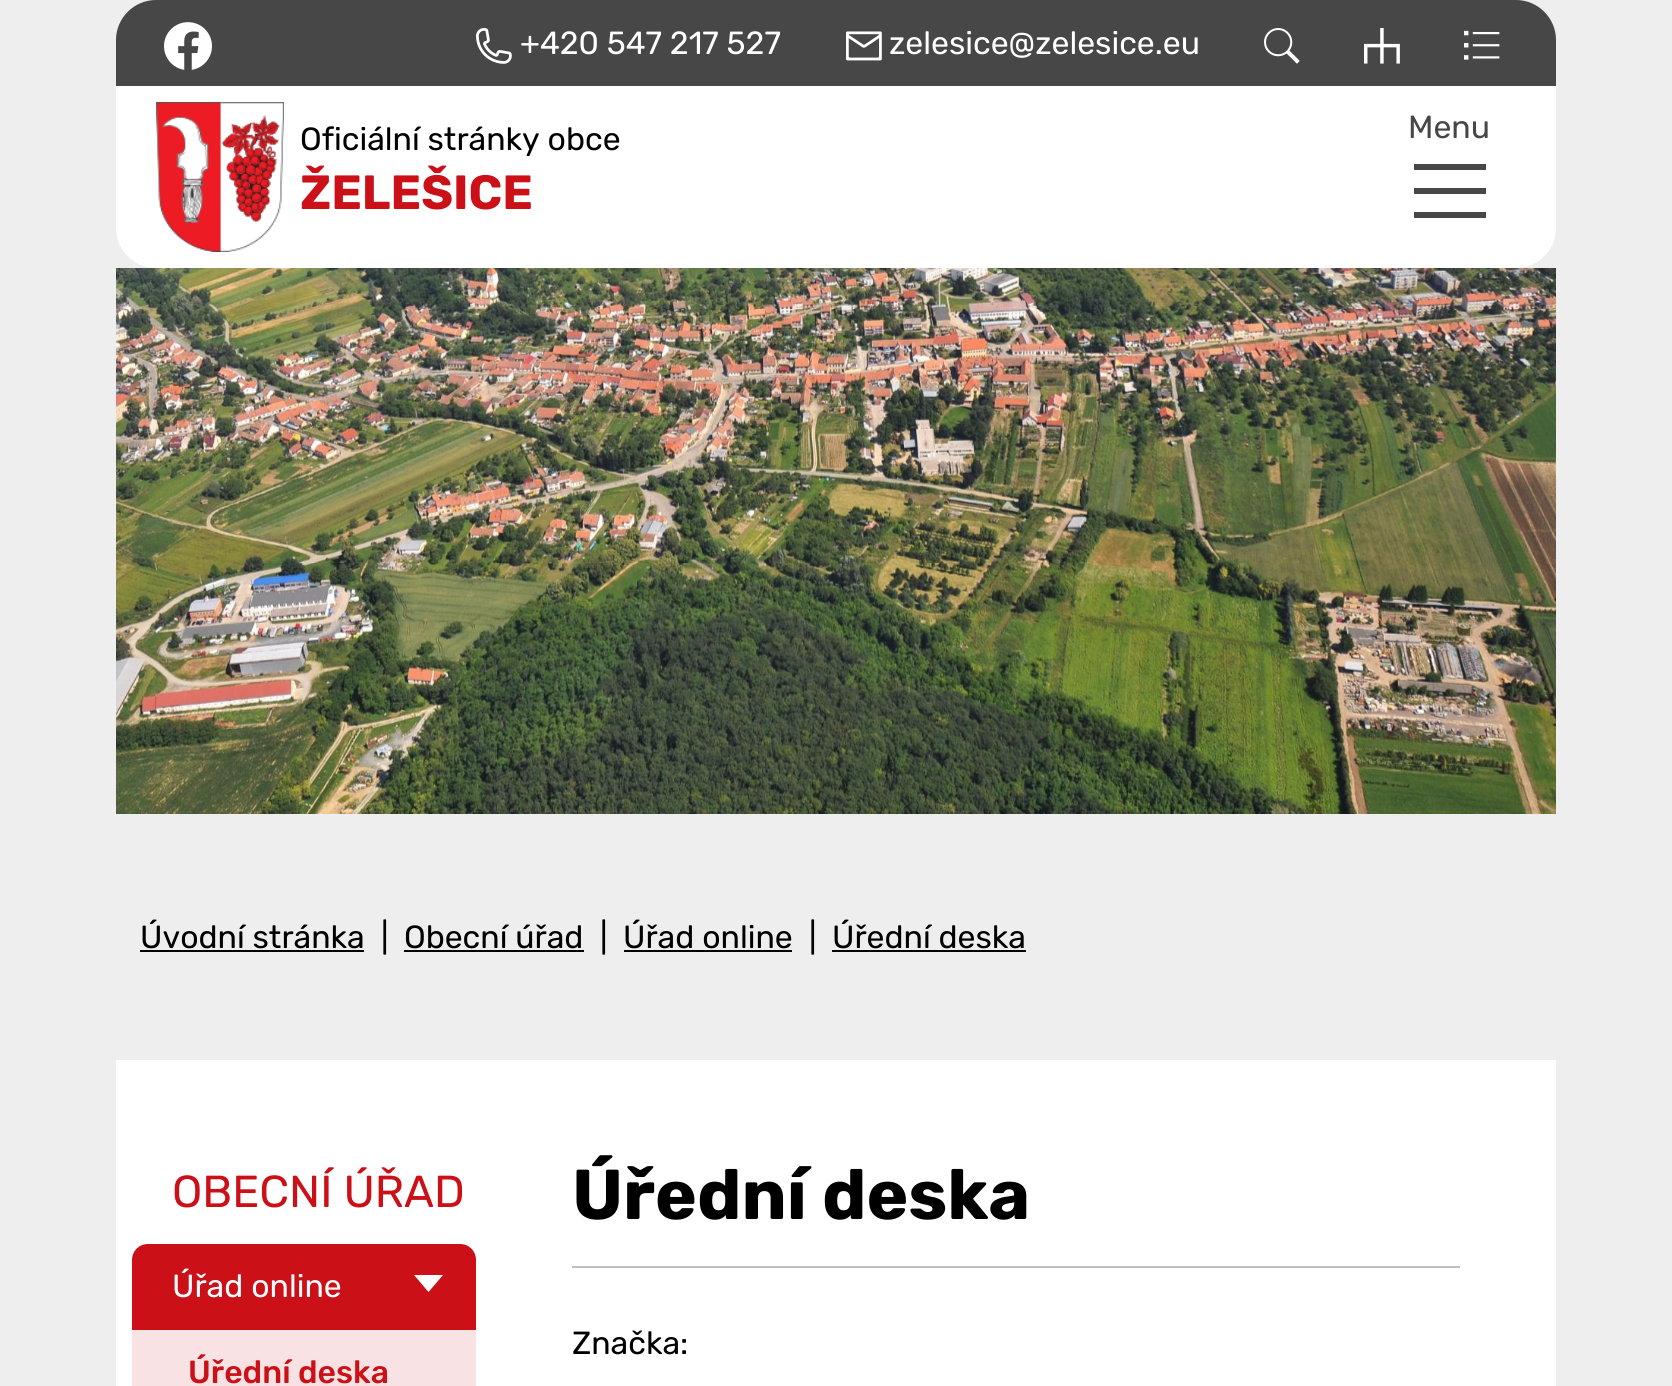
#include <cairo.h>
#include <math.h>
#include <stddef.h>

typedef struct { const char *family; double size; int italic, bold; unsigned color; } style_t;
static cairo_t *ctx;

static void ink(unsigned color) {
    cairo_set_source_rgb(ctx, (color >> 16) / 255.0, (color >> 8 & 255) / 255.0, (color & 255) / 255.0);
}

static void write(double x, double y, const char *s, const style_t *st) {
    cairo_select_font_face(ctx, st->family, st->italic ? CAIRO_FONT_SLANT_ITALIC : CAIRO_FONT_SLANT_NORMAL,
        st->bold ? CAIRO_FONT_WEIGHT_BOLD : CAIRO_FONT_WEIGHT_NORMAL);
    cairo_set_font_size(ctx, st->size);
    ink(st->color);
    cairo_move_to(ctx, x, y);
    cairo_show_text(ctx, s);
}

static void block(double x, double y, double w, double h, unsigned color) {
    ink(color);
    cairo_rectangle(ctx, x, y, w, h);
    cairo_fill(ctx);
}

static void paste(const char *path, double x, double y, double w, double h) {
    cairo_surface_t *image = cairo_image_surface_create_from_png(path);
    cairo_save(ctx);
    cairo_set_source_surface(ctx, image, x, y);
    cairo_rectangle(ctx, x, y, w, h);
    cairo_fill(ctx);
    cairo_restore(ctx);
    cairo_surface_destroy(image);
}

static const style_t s1 = {"Rubik", 32, 0, 0, 0xffffff};
static const style_t s2 = {"Rubik", 32, 0, 0, 0x000000};
static const style_t s3 = {"Rubik", 48, 0, 1, 0xcb1017};
static const style_t s4 = {"Rubik", 32, 0, 0, 0x474747};
static const style_t s5 = {"Rubik", 44.75, 0, 0, 0xcb1017};
static const style_t s6 = {"Rubik Medium", 32, 0, 0, 0xcb1017};
static const style_t s7 = {"Rubik", 70.5, 0, 1, 0x000000};

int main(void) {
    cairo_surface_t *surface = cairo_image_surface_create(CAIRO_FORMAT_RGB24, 1672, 1386);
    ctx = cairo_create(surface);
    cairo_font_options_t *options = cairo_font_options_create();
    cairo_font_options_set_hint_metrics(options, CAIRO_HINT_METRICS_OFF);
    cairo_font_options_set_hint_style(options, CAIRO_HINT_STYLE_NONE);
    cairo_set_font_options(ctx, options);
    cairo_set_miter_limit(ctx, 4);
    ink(0xeeeeee);
    cairo_paint(ctx);
    ink(0x474747);
    cairo_new_path(ctx);
    cairo_move_to(ctx, 156, 0);
    cairo_line_to(ctx, 1516, 0);
    cairo_curve_to(ctx, 1538, 0, 1556, 18, 1556, 40);
    cairo_line_to(ctx, 1556, 86);
    cairo_line_to(ctx, 116, 86);
    cairo_line_to(ctx, 116, 40);
    cairo_curve_to(ctx, 116, 18, 134, 0, 156, 0);
    cairo_close_path(ctx);
    cairo_fill(ctx);
    paste("pic1.png", 164, 22, 48, 48);
    paste("pic2.png", 476, 28, 36, 36);
    write(520, 54, "+420 547 217 527", &s1);
    paste("pic3.png", 846, 31, 36, 30);
    write(889, 54, "zelesice@zelesice.eu", &s1);
    paste("pic4.png", 1264, 28, 36, 36);
    paste("pic5.png", 1364, 28, 36, 36);
    paste("pic6.png", 1464, 30, 36, 30);
    cairo_new_path(ctx);
    cairo_move_to(ctx, 116, 86);
    cairo_line_to(ctx, 1556, 86);
    cairo_line_to(ctx, 1556, 228);
    cairo_curve_to(ctx, 1556, 250, 1538, 268, 1516, 268);
    cairo_line_to(ctx, 156, 268);
    cairo_curve_to(ctx, 134, 268, 116, 250, 116, 228);
    cairo_close_path(ctx);
    cairo_fill(ctx);
    paste("pic7.png", 156, 102, 128, 150);
    write(300, 150, "Oficiální stránky obce", &s2);
    write(300, 209, "ŽELEŠICE", &s3);
    write(1408, 138, "Menu", &s4);
    block(1414, 212, 72, 6, 0x474747);
    block(1414, 164, 72, 6, 0x474747);
    block(1414, 188, 72, 6, 0x474747);
    paste("pic8.png", 116, 268, 1440, 546);
    write(140, 948, "Úvodní stránka", &s2);
    block(140, 950, 224, 2, 0x000000);
    write(381, 948, "|", &s2);
    write(404, 948, "Obecní úřad", &s2);
    block(404, 950, 180, 2, 0x000000);
    write(600, 948, "|", &s2);
    write(623, 948, "Úřad online", &s2);
    block(624, 950, 168, 2, 0x000000);
    write(809, 948, "|", &s2);
    write(832, 948, "Úřední deska", &s2);
    block(832, 950, 194, 2, 0x000000);
    block(116, 1060, 1440, 326, 0xffffff);
    write(172, 1207, "OBECNÍ ÚŘAD", &s5);
    cairo_new_path(ctx);
    cairo_move_to(ctx, 148, 1244);
    cairo_line_to(ctx, 460, 1244);
    cairo_curve_to(ctx, 469, 1244, 476, 1251, 476, 1260);
    cairo_line_to(ctx, 476, 1330);
    cairo_line_to(ctx, 132, 1330);
    cairo_line_to(ctx, 132, 1260);
    cairo_curve_to(ctx, 132, 1251, 139, 1244, 148, 1244);
    cairo_close_path(ctx);
    cairo_fill(ctx);
    write(172, 1297, "Úřad online", &s1);
    cairo_new_path(ctx);
    cairo_move_to(ctx, 428.5, 1292);
    cairo_line_to(ctx, 414, 1275);
    cairo_line_to(ctx, 443, 1275);
    cairo_close_path(ctx);
    cairo_fill(ctx);
    block(132, 1330, 344, 56, 0xf9e2e3);
    write(188, 1383, "Úřední deska", &s6);
    write(572, 1219, "Úřední deska", &s7);
    block(572, 1266, 888, 2, 0xbfbfbf);
    write(572, 1354, "Značka:", &s2);
    cairo_surface_write_to_png(surface, "screenshot.png");
    cairo_font_options_destroy(options);
    cairo_destroy(ctx);
    cairo_surface_destroy(surface);
    return 0;
}
